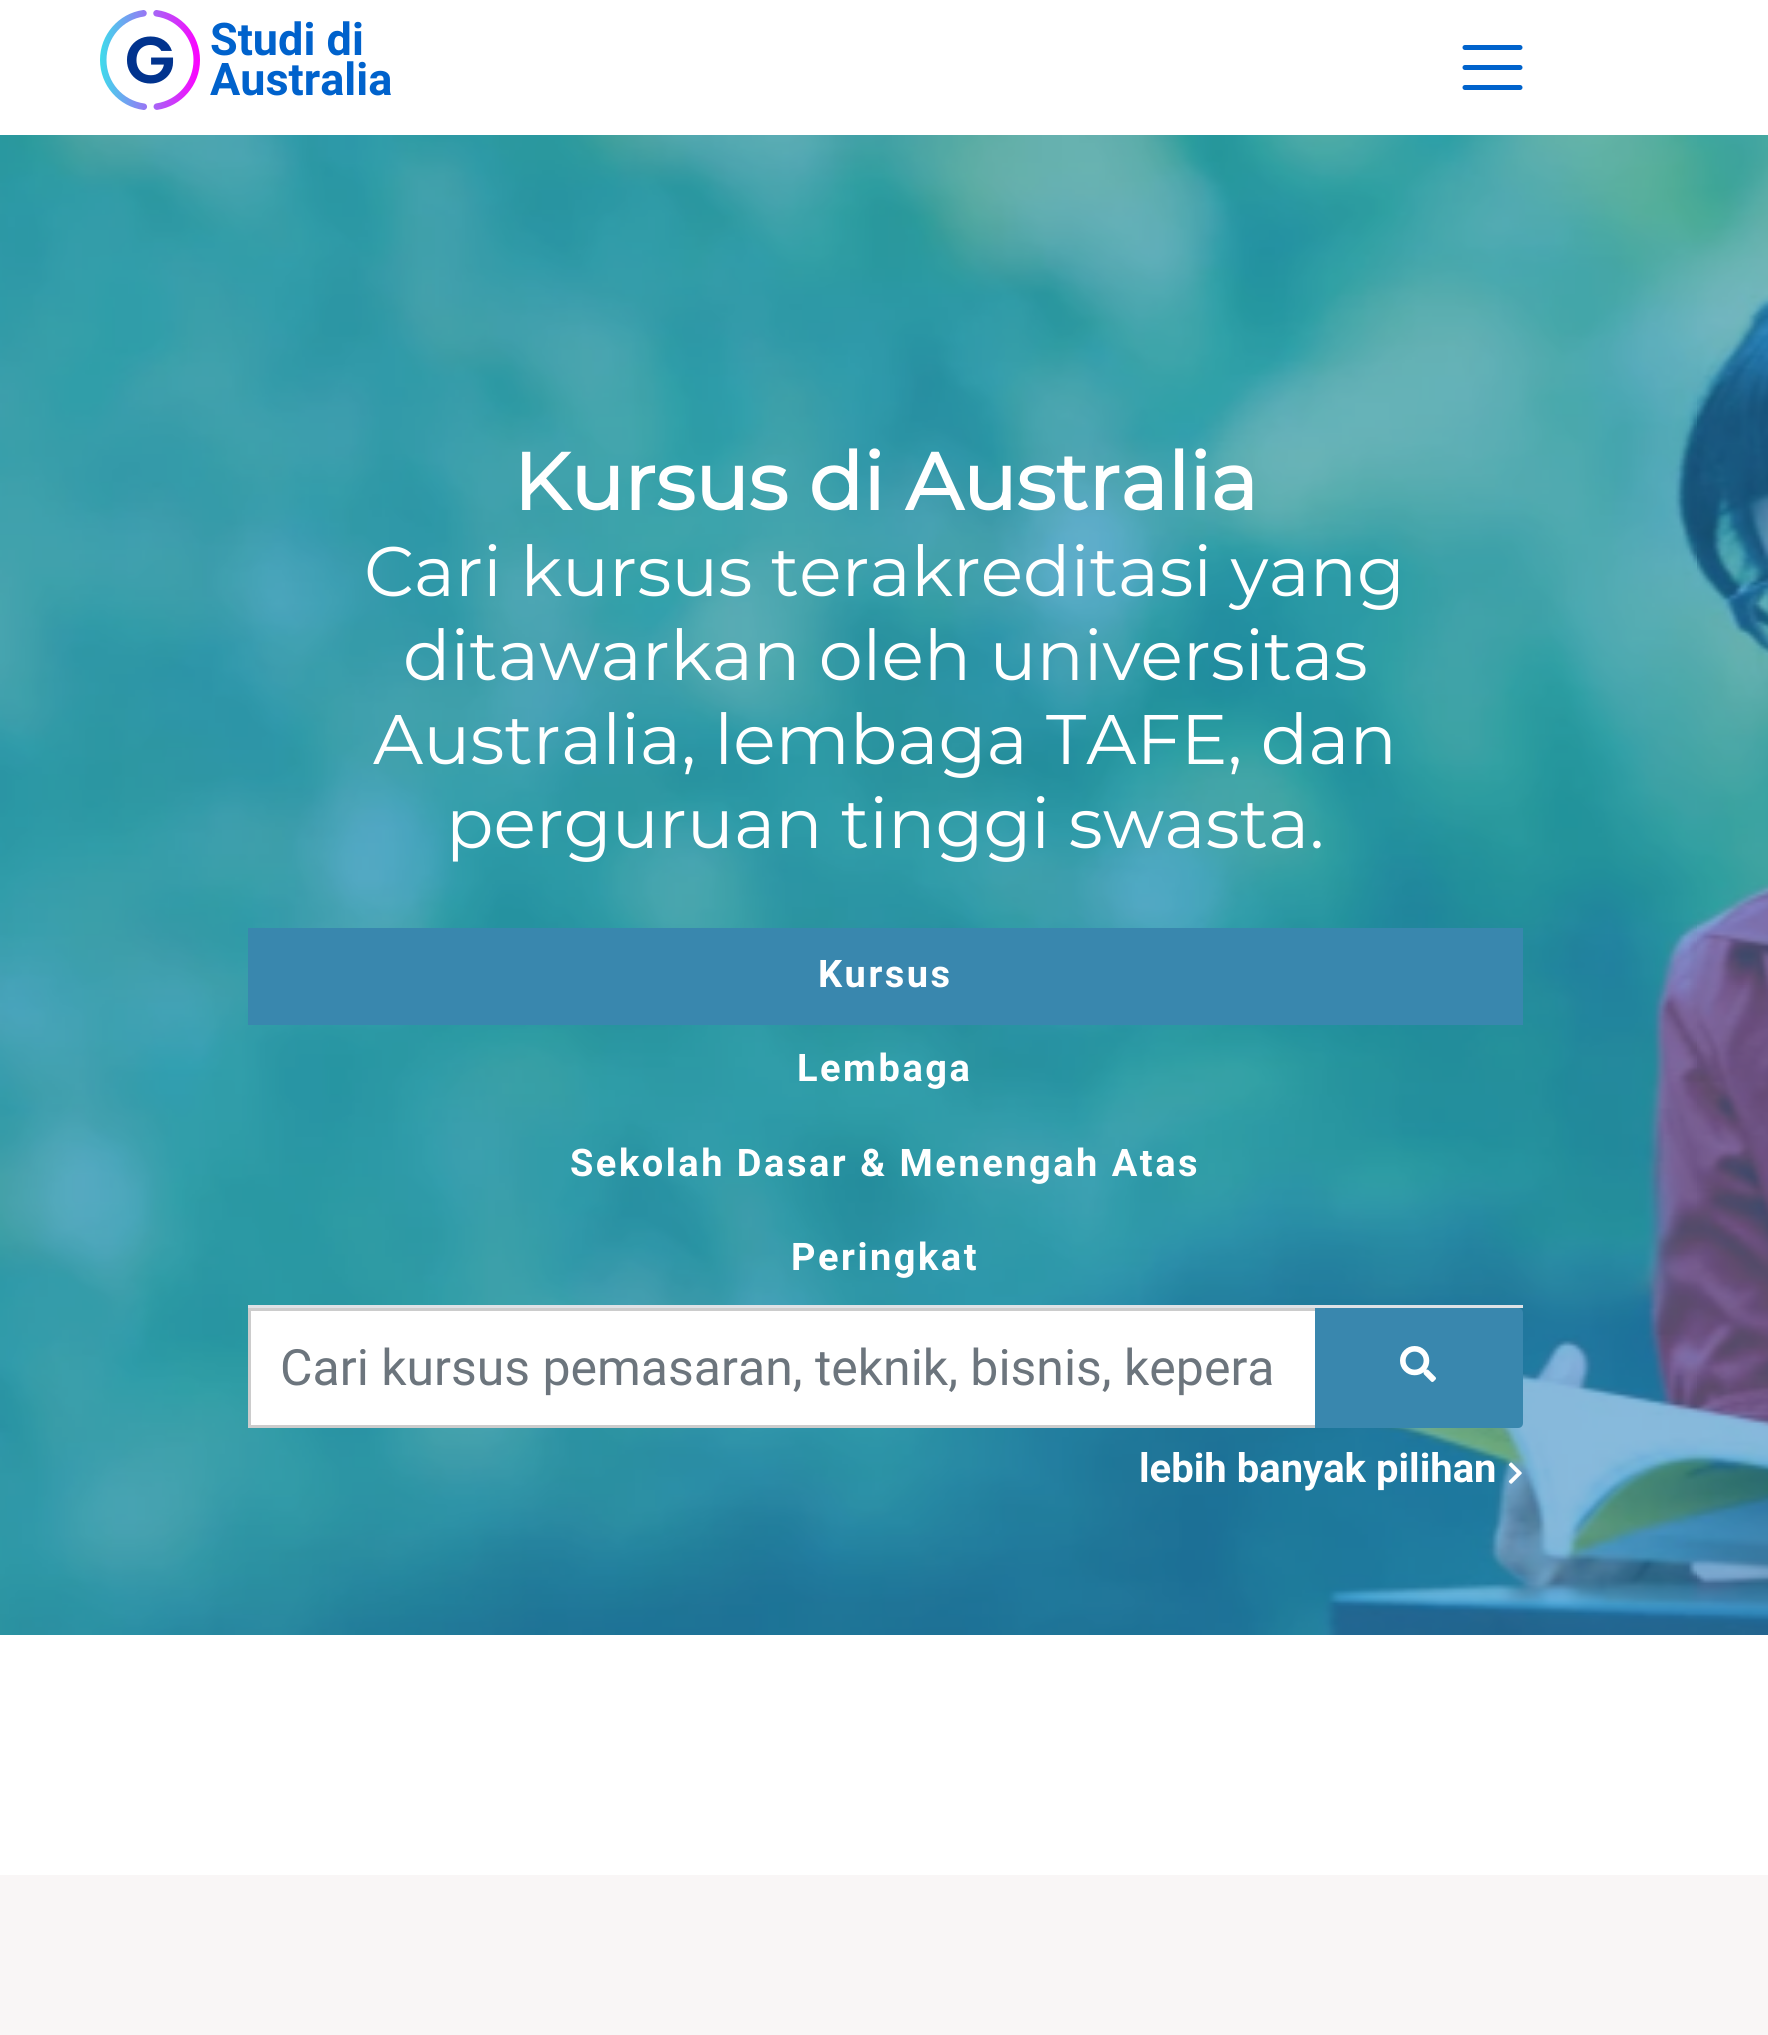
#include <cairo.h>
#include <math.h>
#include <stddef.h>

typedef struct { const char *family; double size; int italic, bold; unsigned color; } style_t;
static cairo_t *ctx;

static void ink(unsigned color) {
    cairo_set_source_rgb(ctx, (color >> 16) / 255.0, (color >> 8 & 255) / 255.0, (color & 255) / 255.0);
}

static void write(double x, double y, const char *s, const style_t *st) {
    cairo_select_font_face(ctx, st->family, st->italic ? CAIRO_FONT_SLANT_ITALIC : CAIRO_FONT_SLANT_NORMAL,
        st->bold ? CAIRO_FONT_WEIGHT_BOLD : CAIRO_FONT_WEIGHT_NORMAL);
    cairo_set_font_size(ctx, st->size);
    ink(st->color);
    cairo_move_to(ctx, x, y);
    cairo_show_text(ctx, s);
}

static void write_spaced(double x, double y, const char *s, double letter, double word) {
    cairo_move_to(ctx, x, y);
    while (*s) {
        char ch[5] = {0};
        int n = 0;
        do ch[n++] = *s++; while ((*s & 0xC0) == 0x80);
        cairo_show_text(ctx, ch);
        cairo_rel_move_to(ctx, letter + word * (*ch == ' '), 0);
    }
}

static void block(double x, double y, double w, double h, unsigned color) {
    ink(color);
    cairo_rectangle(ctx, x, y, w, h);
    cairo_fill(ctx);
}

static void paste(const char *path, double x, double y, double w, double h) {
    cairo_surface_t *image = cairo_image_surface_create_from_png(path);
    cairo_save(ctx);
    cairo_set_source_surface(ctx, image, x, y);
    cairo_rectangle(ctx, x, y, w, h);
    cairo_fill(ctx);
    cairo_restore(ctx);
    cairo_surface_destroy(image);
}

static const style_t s1 = {"Roboto", 45, 0, 1, 0x0062cc};
static const style_t s2 = {"Montserrat", 80, 0, 1, 0xffffff};
static const style_t s3 = {"Montserrat Thin", 70, 0, 0, 0xffffff};
static const style_t s4 = {"Roboto", 50, 0, 0, 0x6c757d};
static const style_t s5 = {"Roboto", 40, 0, 1, 0xffffff};

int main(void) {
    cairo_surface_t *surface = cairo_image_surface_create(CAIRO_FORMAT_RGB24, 1768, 2035);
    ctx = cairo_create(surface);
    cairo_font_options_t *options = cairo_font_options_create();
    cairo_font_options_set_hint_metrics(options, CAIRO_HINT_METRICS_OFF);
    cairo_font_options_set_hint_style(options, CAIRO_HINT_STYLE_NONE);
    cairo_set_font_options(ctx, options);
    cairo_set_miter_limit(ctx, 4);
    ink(0xffffff);
    cairo_paint(ctx);
    paste("pic1.png", 100, 10, 100, 100);
    write(210, 55, "Studi di", &s1);
    write(210, 95, "Australia", &s1);
    cairo_new_path(ctx);
    cairo_move_to(ctx, 1465, 47.5);
    cairo_line_to(ctx, 1520, 47.5);
    cairo_move_to(ctx, 1465, 67.5);
    cairo_line_to(ctx, 1520, 67.5);
    cairo_move_to(ctx, 1465, 87.5);
    cairo_line_to(ctx, 1520, 87.5);
    ink(0x0063cc);
    cairo_set_line_width(ctx, 5);
    cairo_set_line_cap(ctx, CAIRO_LINE_CAP_ROUND);
    cairo_stroke(ctx);
    paste("pic2.png", 0, 135, 1768, 1500);
    write(513, 510, "Kursus di Australia", &s2);
    write(364, 596, "Cari kursus terakreditasi yang", &s3);
    write(403, 680, "ditawarkan oleh universitas", &s3);
    write(373, 764, "Australia, lembaga TAFE, dan", &s3);
    write(446, 848, "perguruan tinggi swasta.", &s3);
    block(248, 1305, 1275, 3, 0xdee2e6);
    block(248, 928, 1275, 97, 0x3987ae);
    cairo_select_font_face(ctx, "Roboto", CAIRO_FONT_SLANT_NORMAL, CAIRO_FONT_WEIGHT_BOLD);
    cairo_set_font_size(ctx, 38);
    ink(0xffffff);
    write_spaced(818, 987, "Kursus", 2.5, 0);
    write_spaced(797, 1081, "Lembaga", 2.5, 0);
    write_spaced(570, 1176, "Sekolah Dasar & Menengah Atas", 2.5, 0);
    write_spaced(791, 1270, "Peringkat", 2.5, 0);
    cairo_rectangle(ctx, 249.5, 1309.5, 1067, 117);
    cairo_fill_preserve(ctx);
    ink(0xcccccc);
    cairo_set_line_width(ctx, 3);
    cairo_set_line_cap(ctx, CAIRO_LINE_CAP_BUTT);
    cairo_stroke(ctx);
    write(280, 1385, "Cari kursus pemasaran, teknik, bisnis, kepera", &s4);
    ink(0x3987ae);
    cairo_new_path(ctx);
    cairo_move_to(ctx, 1315, 1308);
    cairo_line_to(ctx, 1518, 1308);
    cairo_curve_to(ctx, 1521, 1308, 1523, 1310, 1523, 1313);
    cairo_line_to(ctx, 1523, 1423);
    cairo_curve_to(ctx, 1523, 1426, 1521, 1428, 1518, 1428);
    cairo_line_to(ctx, 1315, 1428);
    cairo_close_path(ctx);
    cairo_fill(ctx);
    paste("pic3.png", 1400, 1346, 36, 36);
    write(1139, 1482, "lebih banyak pilihan", &s5);
    paste("pic4.png", 1508, 1462, 14, 22);
    block(0, 1875, 1768, 160, 0xf9f6f6);
    cairo_surface_write_to_png(surface, "screenshot.png");
    cairo_font_options_destroy(options);
    cairo_destroy(ctx);
    cairo_surface_destroy(surface);
    return 0;
}
